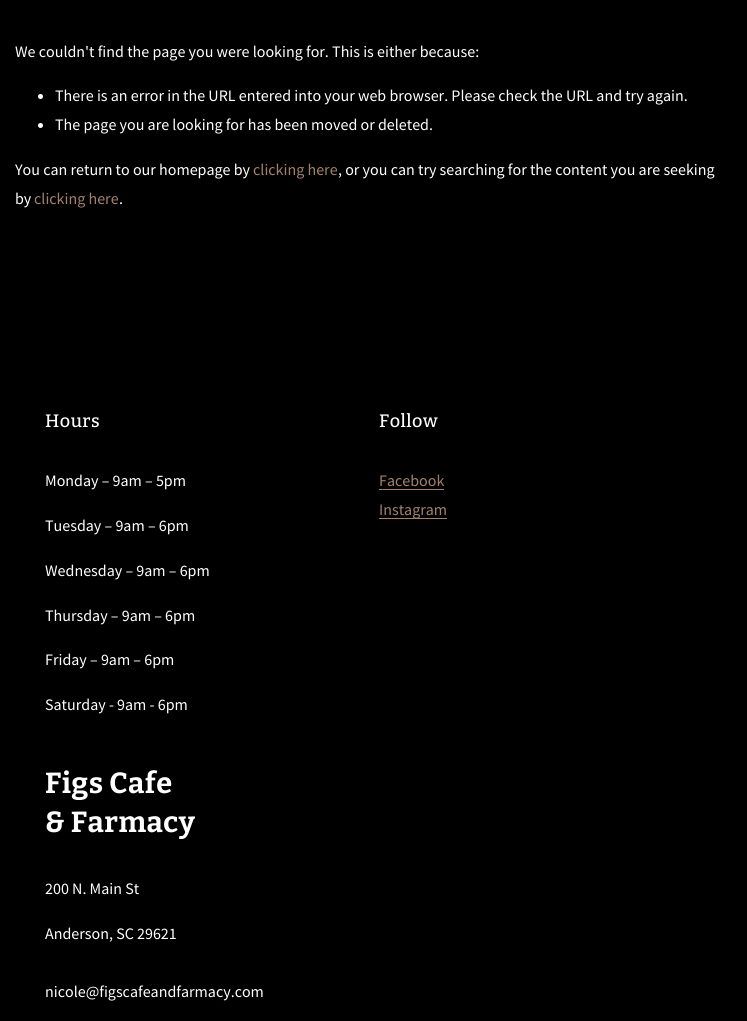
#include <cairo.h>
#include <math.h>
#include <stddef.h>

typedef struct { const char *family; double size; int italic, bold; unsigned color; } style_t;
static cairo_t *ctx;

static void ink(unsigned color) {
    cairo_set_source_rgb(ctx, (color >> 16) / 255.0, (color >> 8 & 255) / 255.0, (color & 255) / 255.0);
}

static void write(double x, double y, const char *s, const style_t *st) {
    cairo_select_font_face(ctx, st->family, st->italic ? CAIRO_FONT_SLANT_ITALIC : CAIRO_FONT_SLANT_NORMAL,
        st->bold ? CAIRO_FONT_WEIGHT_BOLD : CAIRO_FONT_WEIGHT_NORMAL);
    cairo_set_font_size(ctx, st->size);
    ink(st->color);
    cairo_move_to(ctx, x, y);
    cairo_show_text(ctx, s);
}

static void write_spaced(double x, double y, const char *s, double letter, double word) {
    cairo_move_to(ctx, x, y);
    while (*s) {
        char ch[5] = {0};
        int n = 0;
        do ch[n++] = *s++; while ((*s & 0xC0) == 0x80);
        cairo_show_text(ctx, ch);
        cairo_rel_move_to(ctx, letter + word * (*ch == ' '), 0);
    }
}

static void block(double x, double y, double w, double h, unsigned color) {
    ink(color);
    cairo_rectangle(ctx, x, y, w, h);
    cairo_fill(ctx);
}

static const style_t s1 = {"Source Sans Pro", 16, 0, 0, 0xffffff};
static const style_t s2 = {"Source Sans Pro", 16, 0, 0, 0xa3826c};

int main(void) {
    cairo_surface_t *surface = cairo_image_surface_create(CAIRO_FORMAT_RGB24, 747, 1021);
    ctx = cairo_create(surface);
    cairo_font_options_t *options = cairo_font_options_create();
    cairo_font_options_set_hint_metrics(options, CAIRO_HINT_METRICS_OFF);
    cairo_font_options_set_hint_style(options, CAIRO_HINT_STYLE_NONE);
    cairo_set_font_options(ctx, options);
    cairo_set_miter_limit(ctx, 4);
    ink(0x000000);
    cairo_paint(ctx);
    write(15, 57, "We couldn't find the page you were looking for. This is either because:", &s1);
    cairo_new_path(ctx);
    cairo_arc(ctx, 40.5, 96.5, 2.5, 0, 2 * M_PI);
    cairo_fill(ctx);
    write(55, 101, "There is an error in the URL entered into your web browser. Please check the URL and try again.", &s1);
    cairo_new_path(ctx);
    cairo_arc(ctx, 40.5, 125.5, 2.5, 0, 2 * M_PI);
    cairo_fill(ctx);
    write(55, 130, "The page you are looking for has been moved or deleted.", &s1);
    write(15, 175, "You can return to our homepage by", &s1);
    write(253, 175, "clicking here", &s2);
    write(338, 175, ", or you can try searching for the content you are seeking", &s1);
    write(15, 204, "by", &s1);
    write(34, 204, "clicking here", &s2);
    write(119, 204, ".", &s1);
    cairo_select_font_face(ctx, "Bitter Medium", CAIRO_FONT_SLANT_NORMAL, CAIRO_FONT_WEIGHT_NORMAL);
    cairo_set_font_size(ctx, 18);
    write_spaced(45, 427, "Hours", 0.5, 0);
    write(45, 486, "Monday – 9am – 5pm", &s1);
    write(45, 531, "Tuesday – 9am – 6pm", &s1);
    write(45, 576, "Wednesday – 9am – 6pm", &s1);
    write(45, 621, "Thursday – 9am – 6pm", &s1);
    write(45, 665, "Friday – 9am – 6pm", &s1);
    write(45, 710, "Saturday - 9am - 6pm", &s1);
    cairo_select_font_face(ctx, "Bitter Medium", CAIRO_FONT_SLANT_NORMAL, CAIRO_FONT_WEIGHT_NORMAL);
    cairo_set_font_size(ctx, 18);
    write_spaced(379, 427, "Follow", 0.5, 0);
    write(379, 486, "Facebook", &s2);
    block(379, 489, 65, 1, 0xa3826c);
    block(379, 518, 68, 1, 0xa3826c);
    write(379, 515, "Instagram", &s2);
    cairo_select_font_face(ctx, "Bitter", CAIRO_FONT_SLANT_NORMAL, CAIRO_FONT_WEIGHT_BOLD);
    cairo_set_font_size(ctx, 29);
    ink(0xffffff);
    write_spaced(45, 793, "Figs Cafe", 0.5, 0);
    write_spaced(45, 832, "& Farmacy", 0.5, 0);
    write(45, 894, "200 N. Main St", &s1);
    write(45, 939, "Anderson, SC 29621", &s1);
    write(45, 997, "nicole@figscafeandfarmacy.com", &s1);
    cairo_surface_write_to_png(surface, "screenshot.png");
    cairo_font_options_destroy(options);
    cairo_destroy(ctx);
    cairo_surface_destroy(surface);
    return 0;
}
